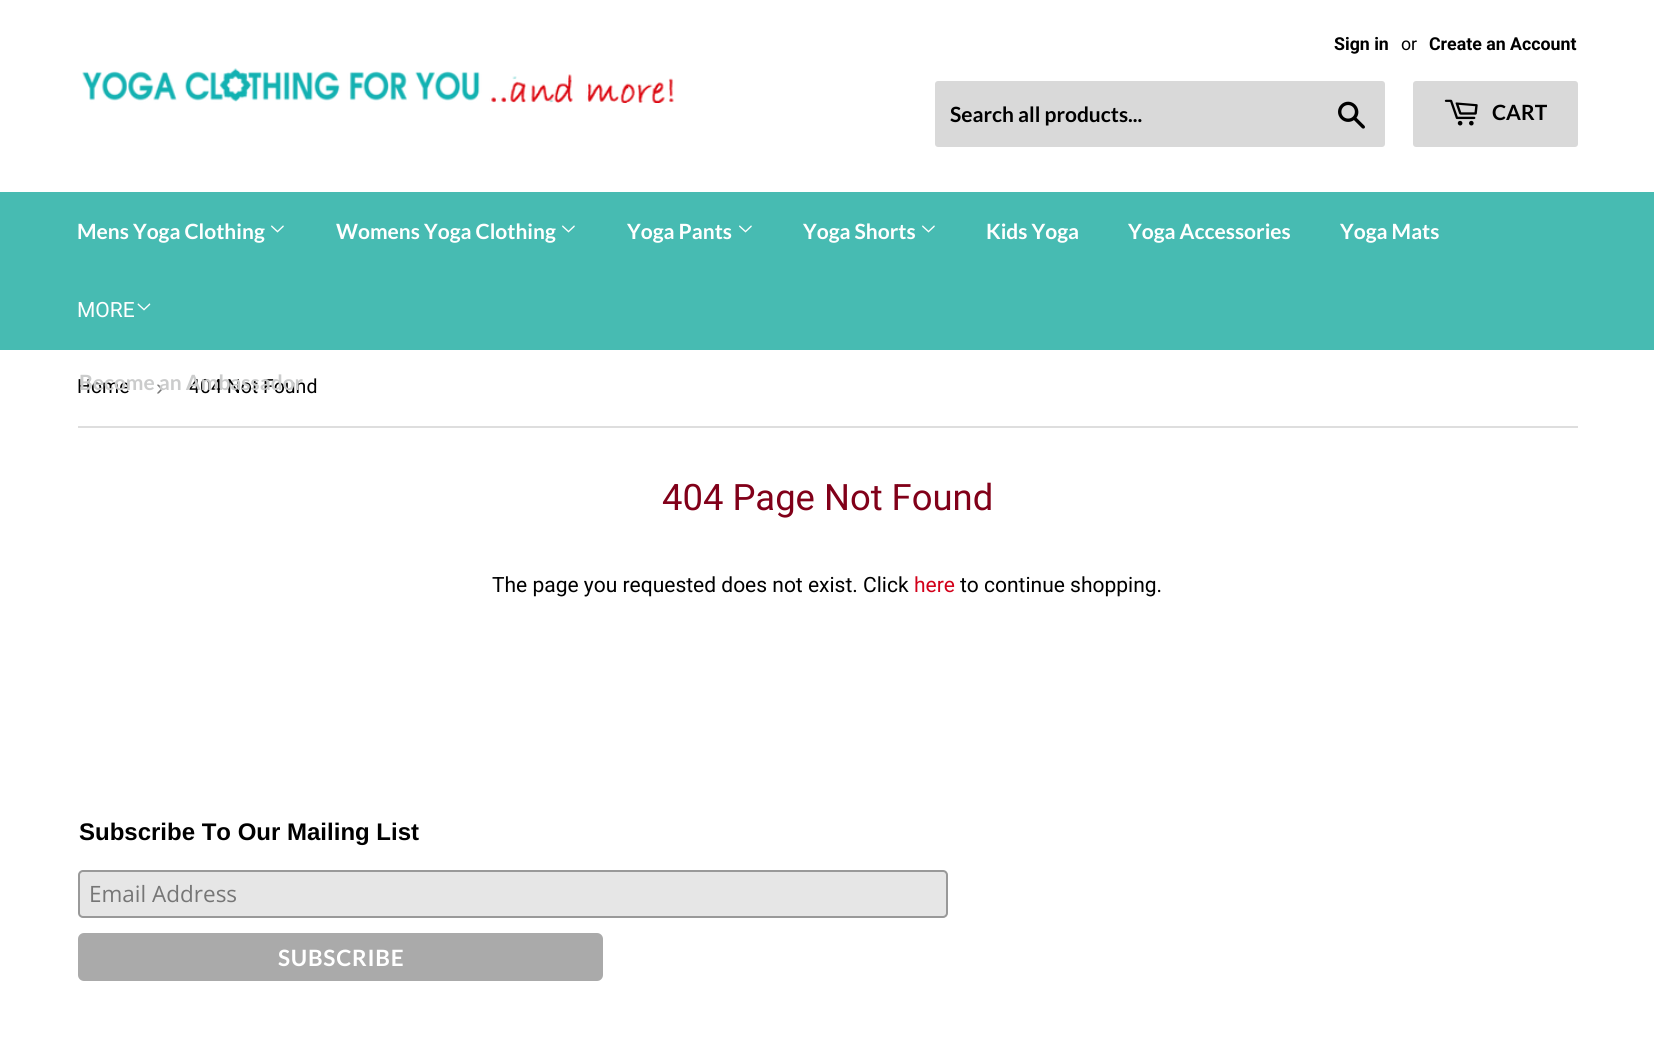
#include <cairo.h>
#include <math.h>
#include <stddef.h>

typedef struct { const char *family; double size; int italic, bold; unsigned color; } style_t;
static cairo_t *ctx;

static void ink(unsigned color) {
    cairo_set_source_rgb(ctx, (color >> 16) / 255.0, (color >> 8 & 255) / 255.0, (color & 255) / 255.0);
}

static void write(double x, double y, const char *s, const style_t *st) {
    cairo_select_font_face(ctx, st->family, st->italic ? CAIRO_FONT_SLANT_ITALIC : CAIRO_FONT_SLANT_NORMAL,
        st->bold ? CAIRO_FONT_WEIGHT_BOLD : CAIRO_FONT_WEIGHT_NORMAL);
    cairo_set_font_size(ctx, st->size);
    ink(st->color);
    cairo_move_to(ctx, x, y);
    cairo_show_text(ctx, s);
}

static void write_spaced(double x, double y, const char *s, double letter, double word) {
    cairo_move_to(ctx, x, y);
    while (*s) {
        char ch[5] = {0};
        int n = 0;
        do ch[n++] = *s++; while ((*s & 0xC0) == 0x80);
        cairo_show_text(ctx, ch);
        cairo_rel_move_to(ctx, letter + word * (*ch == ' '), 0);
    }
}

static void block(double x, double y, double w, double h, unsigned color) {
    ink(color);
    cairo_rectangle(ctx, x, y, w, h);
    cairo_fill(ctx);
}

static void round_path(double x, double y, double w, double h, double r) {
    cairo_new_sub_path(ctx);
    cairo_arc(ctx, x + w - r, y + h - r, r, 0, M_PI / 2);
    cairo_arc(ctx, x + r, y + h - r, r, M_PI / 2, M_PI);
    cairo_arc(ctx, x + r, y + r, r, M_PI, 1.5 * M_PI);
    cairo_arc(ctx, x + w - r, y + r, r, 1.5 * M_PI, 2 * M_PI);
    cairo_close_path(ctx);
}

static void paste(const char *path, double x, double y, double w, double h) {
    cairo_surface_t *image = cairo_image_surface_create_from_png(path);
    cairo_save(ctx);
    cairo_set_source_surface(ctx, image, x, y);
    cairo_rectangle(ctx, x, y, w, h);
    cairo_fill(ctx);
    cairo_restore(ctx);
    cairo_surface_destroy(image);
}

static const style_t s1 = {"Roboto", 17.75, 0, 1, 0x000000};
static const style_t s2 = {"Roboto", 17.75, 0, 0, 0x000000};
static const style_t s3 = {"Lato", 21, 0, 1, 0x000000};
static const style_t s4 = {"Lato", 21, 0, 1, 0xffffff};
static const style_t s5 = {"Roboto", 21, 0, 0, 0xffffff};
static const style_t s6 = {"Roboto", 19.5, 0, 0, 0x000000};
static const style_t s7 = {"Liberation Sans", 22.5, 0, 0, 0x767676};
static const style_t s8 = {"Lato", 21, 0, 1, 0xcbcccc};
static const style_t s9 = {"Roboto", 36.4, 0, 0, 0x810019};
static const style_t s10 = {"Roboto", 21, 0, 0, 0x000000};
static const style_t s11 = {"Roboto", 21, 0, 0, 0xd20019};
static const style_t s12 = {"Liberation Sans", 24, 0, 1, 0x000000};
static const style_t s13 = {"Open Sans", 22.5, 0, 0, 0x767676};

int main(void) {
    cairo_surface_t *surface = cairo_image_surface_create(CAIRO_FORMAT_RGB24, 1654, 1060);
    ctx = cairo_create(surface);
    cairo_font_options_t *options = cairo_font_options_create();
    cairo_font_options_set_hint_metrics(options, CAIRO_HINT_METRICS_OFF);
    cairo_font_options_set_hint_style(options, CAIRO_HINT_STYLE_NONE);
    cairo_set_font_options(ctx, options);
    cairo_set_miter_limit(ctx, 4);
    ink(0xffffff);
    cairo_paint(ctx);
    paste("pic1.png", 82, 68, 592, 35);
    write(1334, 50, "Sign in", &s1);
    write(1401, 50, "or", &s2);
    write(1429, 50, "Create an Account", &s1);
    ink(0xd9d9d9);
    round_path(935, 81, 450, 66, 3);
    cairo_fill(ctx);
    write(950, 122, "Search all products...", &s3);
    paste("pic2.png", 1338, 101, 27, 28);
    ink(0xd9d9d9);
    round_path(1413, 81, 165, 66, 3);
    cairo_fill(ctx);
    paste("pic3.png", 1444, 99, 34, 27);
    write(1492, 120, "CART", &s3);
    block(0, 192, 1654, 158, 0x47bbb2);
    write(77, 239, "Mens Yoga Clothing", &s4);
    paste("pic4.png", 271, 225, 13, 8);
    write(336, 239, "Womens Yoga Clothing", &s4);
    paste("pic4.png", 562, 225, 13, 8);
    write(627, 239, "Yoga Pants", &s4);
    paste("pic4.png", 739, 225, 13, 8);
    write(803, 239, "Yoga Shorts", &s4);
    paste("pic4.png", 922, 225, 13, 8);
    write(986, 239, "Kids Yoga", &s4);
    write(1128, 239, "Yoga Accessories", &s4);
    write(1340, 239, "Yoga Mats", &s4);
    write(77, 317, "MORE", &s5);
    paste("pic5.png", 137, 303, 14, 8);
    write(77, 393, "Home", &s6);
    write(156, 395, "›", &s7);
    write(189, 393, "404 Not Found", &s6);
    write(79, 390, "Become an Ambassador", &s8);
    block(78, 426, 1500, 2, 0xdedede);
    write(662, 510, "404 Page Not Found", &s9);
    write(492, 592, "The page you requested does not exist. Click", &s10);
    write(914, 592, "here", &s11);
    write(960, 592, "to continue shopping.", &s10);
    write(79, 840, "Subscribe To Our Mailing List", &s12);
    ink(0xe6e6e6);
    round_path(79, 871, 868, 46, 4);
    cairo_fill_preserve(ctx);
    ink(0x999999);
    cairo_stroke(ctx);
    write(89, 902, "Email Address", &s13);
    ink(0xaaaaaa);
    round_path(78, 933, 525, 48, 6);
    cairo_fill(ctx);
    cairo_select_font_face(ctx, "Lato", CAIRO_FONT_SLANT_NORMAL, CAIRO_FONT_WEIGHT_BOLD);
    ink(0xffffff);
    write_spaced(278, 966, "SUBSCRIBE", 0.75, 0);
    cairo_surface_write_to_png(surface, "screenshot.png");
    cairo_font_options_destroy(options);
    cairo_destroy(ctx);
    cairo_surface_destroy(surface);
    return 0;
}
